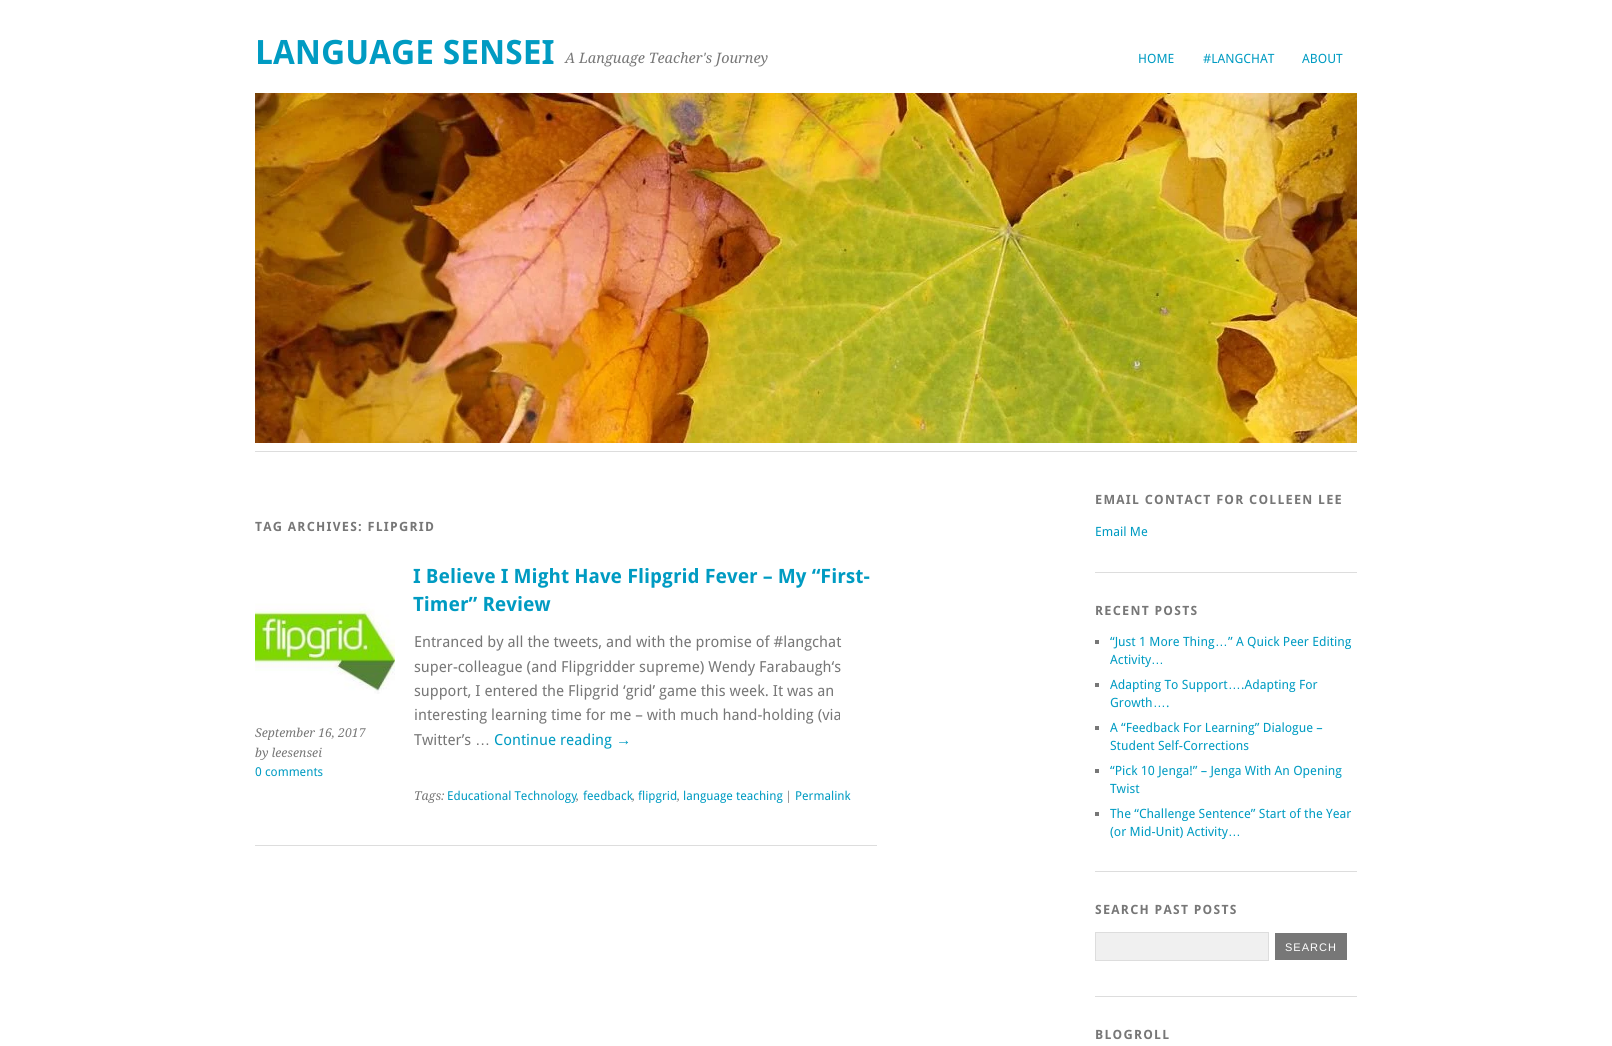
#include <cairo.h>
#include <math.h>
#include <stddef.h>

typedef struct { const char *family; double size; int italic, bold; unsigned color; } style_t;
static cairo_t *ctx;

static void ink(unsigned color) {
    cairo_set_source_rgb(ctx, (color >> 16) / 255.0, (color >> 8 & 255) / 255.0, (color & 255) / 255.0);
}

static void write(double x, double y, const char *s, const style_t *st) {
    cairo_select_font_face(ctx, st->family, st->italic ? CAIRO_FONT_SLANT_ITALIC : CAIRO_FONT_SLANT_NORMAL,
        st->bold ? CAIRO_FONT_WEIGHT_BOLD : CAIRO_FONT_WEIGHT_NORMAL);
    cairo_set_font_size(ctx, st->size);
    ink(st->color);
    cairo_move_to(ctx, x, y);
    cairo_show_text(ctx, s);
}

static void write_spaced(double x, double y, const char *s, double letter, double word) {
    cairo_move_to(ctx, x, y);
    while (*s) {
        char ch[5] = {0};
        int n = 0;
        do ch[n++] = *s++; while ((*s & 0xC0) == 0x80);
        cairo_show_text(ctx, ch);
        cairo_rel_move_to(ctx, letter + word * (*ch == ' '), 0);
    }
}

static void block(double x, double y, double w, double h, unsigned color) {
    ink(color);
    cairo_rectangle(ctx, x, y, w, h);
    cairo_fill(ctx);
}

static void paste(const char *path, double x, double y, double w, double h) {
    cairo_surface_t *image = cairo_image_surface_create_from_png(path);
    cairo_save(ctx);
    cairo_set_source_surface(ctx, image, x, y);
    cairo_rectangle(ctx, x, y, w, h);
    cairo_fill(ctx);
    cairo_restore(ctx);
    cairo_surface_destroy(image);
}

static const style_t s1 = {"Droid Sans", 33.5, 0, 1, 0x009bc2};
static const style_t s2 = {"Droid Serif", 14.4, 1, 0, 0x777777};
static const style_t s3 = {"Droid Sans", 12.75, 0, 0, 0x009bc2};
static const style_t s4 = {"Droid Sans", 19.75, 0, 1, 0x009bc2};
static const style_t s5 = {"Droid Serif", 12.25, 1, 0, 0x777777};
static const style_t s6 = {"Droid Sans", 12.25, 0, 0, 0x009bc2};
static const style_t s7 = {"Droid Sans", 15.2, 0, 0, 0x777777};
static const style_t s8 = {"Liberation Sans", 15.2, 0, 0, 0x777777};
static const style_t s9 = {"Droid Sans", 15.2, 0, 0, 0x009bc2};
static const style_t s10 = {"Liberation Sans", 15.2, 0, 0, 0x009bc2};
static const style_t s11 = {"Liberation Sans", 12.75, 0, 0, 0x009bc2};

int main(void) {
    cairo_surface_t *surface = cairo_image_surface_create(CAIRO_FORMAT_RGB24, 1612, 1046);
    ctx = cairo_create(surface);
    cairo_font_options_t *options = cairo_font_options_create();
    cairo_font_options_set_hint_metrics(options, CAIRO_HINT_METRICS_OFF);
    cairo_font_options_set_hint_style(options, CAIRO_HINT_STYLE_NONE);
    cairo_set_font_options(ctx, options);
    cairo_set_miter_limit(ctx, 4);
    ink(0xffffff);
    cairo_paint(ctx);
    write(255, 64, "LANGUAGE SENSEI", &s1);
    write(565, 63, "A Language Teacher's Journey", &s2);
    write(1138, 63, "HOME", &s3);
    write(1203, 63, "#LANGCHAT", &s3);
    write(1302, 63, "ABOUT", &s3);
    paste("pic1.png", 255, 93, 1102, 350);
    block(255, 451, 1102, 1, 0xdddddd);
    cairo_select_font_face(ctx, "Droid Sans", CAIRO_FONT_SLANT_NORMAL, CAIRO_FONT_WEIGHT_BOLD);
    ink(0x777777);
    write_spaced(255, 531, "TAG ARCHIVES: FLIPGRID", 1.25, 0);
    block(255, 845, 622, 1, 0xdddddd);
    write(413, 583, "I Believe I Might Have Flipgrid Fever – My “First-", &s4);
    write(413, 611, "Timer” Review", &s4);
    paste("pic2.png", 255, 603, 140, 91);
    write(255, 737, "September 16, 2017", &s5);
    write(255, 757, "by leesensei", &s5);
    write(255, 776, "0 comments", &s6);
    write(414, 647, "Entranced by all the tweets, and with the promise of #langchat", &s7);
    write(414, 672, "super-colleague (and Flipgridder supreme) Wendy Farabaugh‘s", &s7);
    write(414, 696, "support, I entered the Flipgrid ‘grid’ game this week. It was an", &s7);
    write(414, 720, "interesting learning time for me – with much hand-holding (via", &s7);
    write(414, 745, "Twitter’s", &s7);
    write(475, 745, "…", &s8);
    write(494, 745, "Continue reading", &s9);
    write(616, 745, "→", &s10);
    write(414, 800, "Tags:", &s5);
    write(447, 800, "Educational Technology", &s6);
    write(583, 800, "feedback", &s6);
    write(638, 800, "flipgrid", &s6);
    write(683, 800, "language teaching", &s6);
    write(785, 800, "|", &s5);
    write(795, 800, "Permalink", &s6);
    write(576, 800, ",", &s5);
    write(632, 800, ",", &s5);
    write(677, 800, ",", &s5);
    block(1095, 572, 262, 1, 0xdddddd);
    cairo_select_font_face(ctx, "Droid Sans", CAIRO_FONT_SLANT_NORMAL, CAIRO_FONT_WEIGHT_BOLD);
    cairo_set_font_size(ctx, 12.75);
    ink(0x777777);
    write_spaced(1095, 504, "EMAIL CONTACT FOR COLLEEN LEE", 1.25, 0);
    write(1095, 536, "Email Me", &s3);
    block(1095, 871, 262, 1, 0xdddddd);
    cairo_select_font_face(ctx, "Droid Sans", CAIRO_FONT_SLANT_NORMAL, CAIRO_FONT_WEIGHT_BOLD);
    ink(0x777777);
    write_spaced(1095, 615, "RECENT POSTS", 1.25, 0);
    block(1095, 640, 4, 4, 0x777777);
    write(1110, 646, "“Just 1 More Thing", &s3);
    write(1228, 646, "” A Quick Peer Editing", &s3);
    write(1215, 646, "…", &s11);
    write(1110, 664, "Activity", &s3);
    write(1151, 664, "…", &s11);
    block(1095, 683, 4, 4, 0x777777);
    write(1110, 689, "Adapting To Support", &s3);
    write(1241, 689, ".Adapting For", &s3);
    write(1228, 689, "…", &s11);
    write(1110, 707, "Growth", &s3);
    write(1153, 707, "…", &s11);
    write(1166, 707, ".", &s3);
    block(1095, 726, 4, 4, 0x777777);
    write(1110, 732, "A “Feedback For Learning” Dialogue –", &s3);
    write(1110, 750, "Student Self-Corrections", &s3);
    block(1095, 769, 4, 4, 0x777777);
    write(1110, 775, "“Pick 10 Jenga!” – Jenga With An Opening", &s3);
    write(1110, 793, "Twist", &s3);
    block(1095, 812, 4, 4, 0x777777);
    write(1110, 818, "The “Challenge Sentence” Start of the Year", &s3);
    write(1110, 836, "(or Mid-Unit) Activity", &s3);
    write(1228, 836, "…", &s11);
    block(1095, 996, 262, 1, 0xdddddd);
    cairo_select_font_face(ctx, "Droid Sans", CAIRO_FONT_SLANT_NORMAL, CAIRO_FONT_WEIGHT_BOLD);
    ink(0x777777);
    write_spaced(1095, 914, "SEARCH PAST POSTS", 1.25, 0);
    ink(0xf0f0f0);
    cairo_rectangle(ctx, 1095.5, 932.5, 173, 28);
    cairo_fill_preserve(ctx);
    ink(0xdddddd);
    cairo_set_line_width(ctx, 1);
    cairo_stroke(ctx);
    block(1275, 933, 72, 27, 0x777777);
    cairo_select_font_face(ctx, "Liberation Sans", CAIRO_FONT_SLANT_NORMAL, CAIRO_FONT_WEIGHT_NORMAL);
    cairo_set_font_size(ctx, 11);
    ink(0xffffff);
    write_spaced(1285, 951, "SEARCH", 1, 0);
    cairo_select_font_face(ctx, "Droid Sans", CAIRO_FONT_SLANT_NORMAL, CAIRO_FONT_WEIGHT_BOLD);
    cairo_set_font_size(ctx, 12.75);
    ink(0x777777);
    write_spaced(1095, 1039, "BLOGROLL", 1.25, 0);
    cairo_surface_write_to_png(surface, "screenshot.png");
    cairo_font_options_destroy(options);
    cairo_destroy(ctx);
    cairo_surface_destroy(surface);
    return 0;
}
